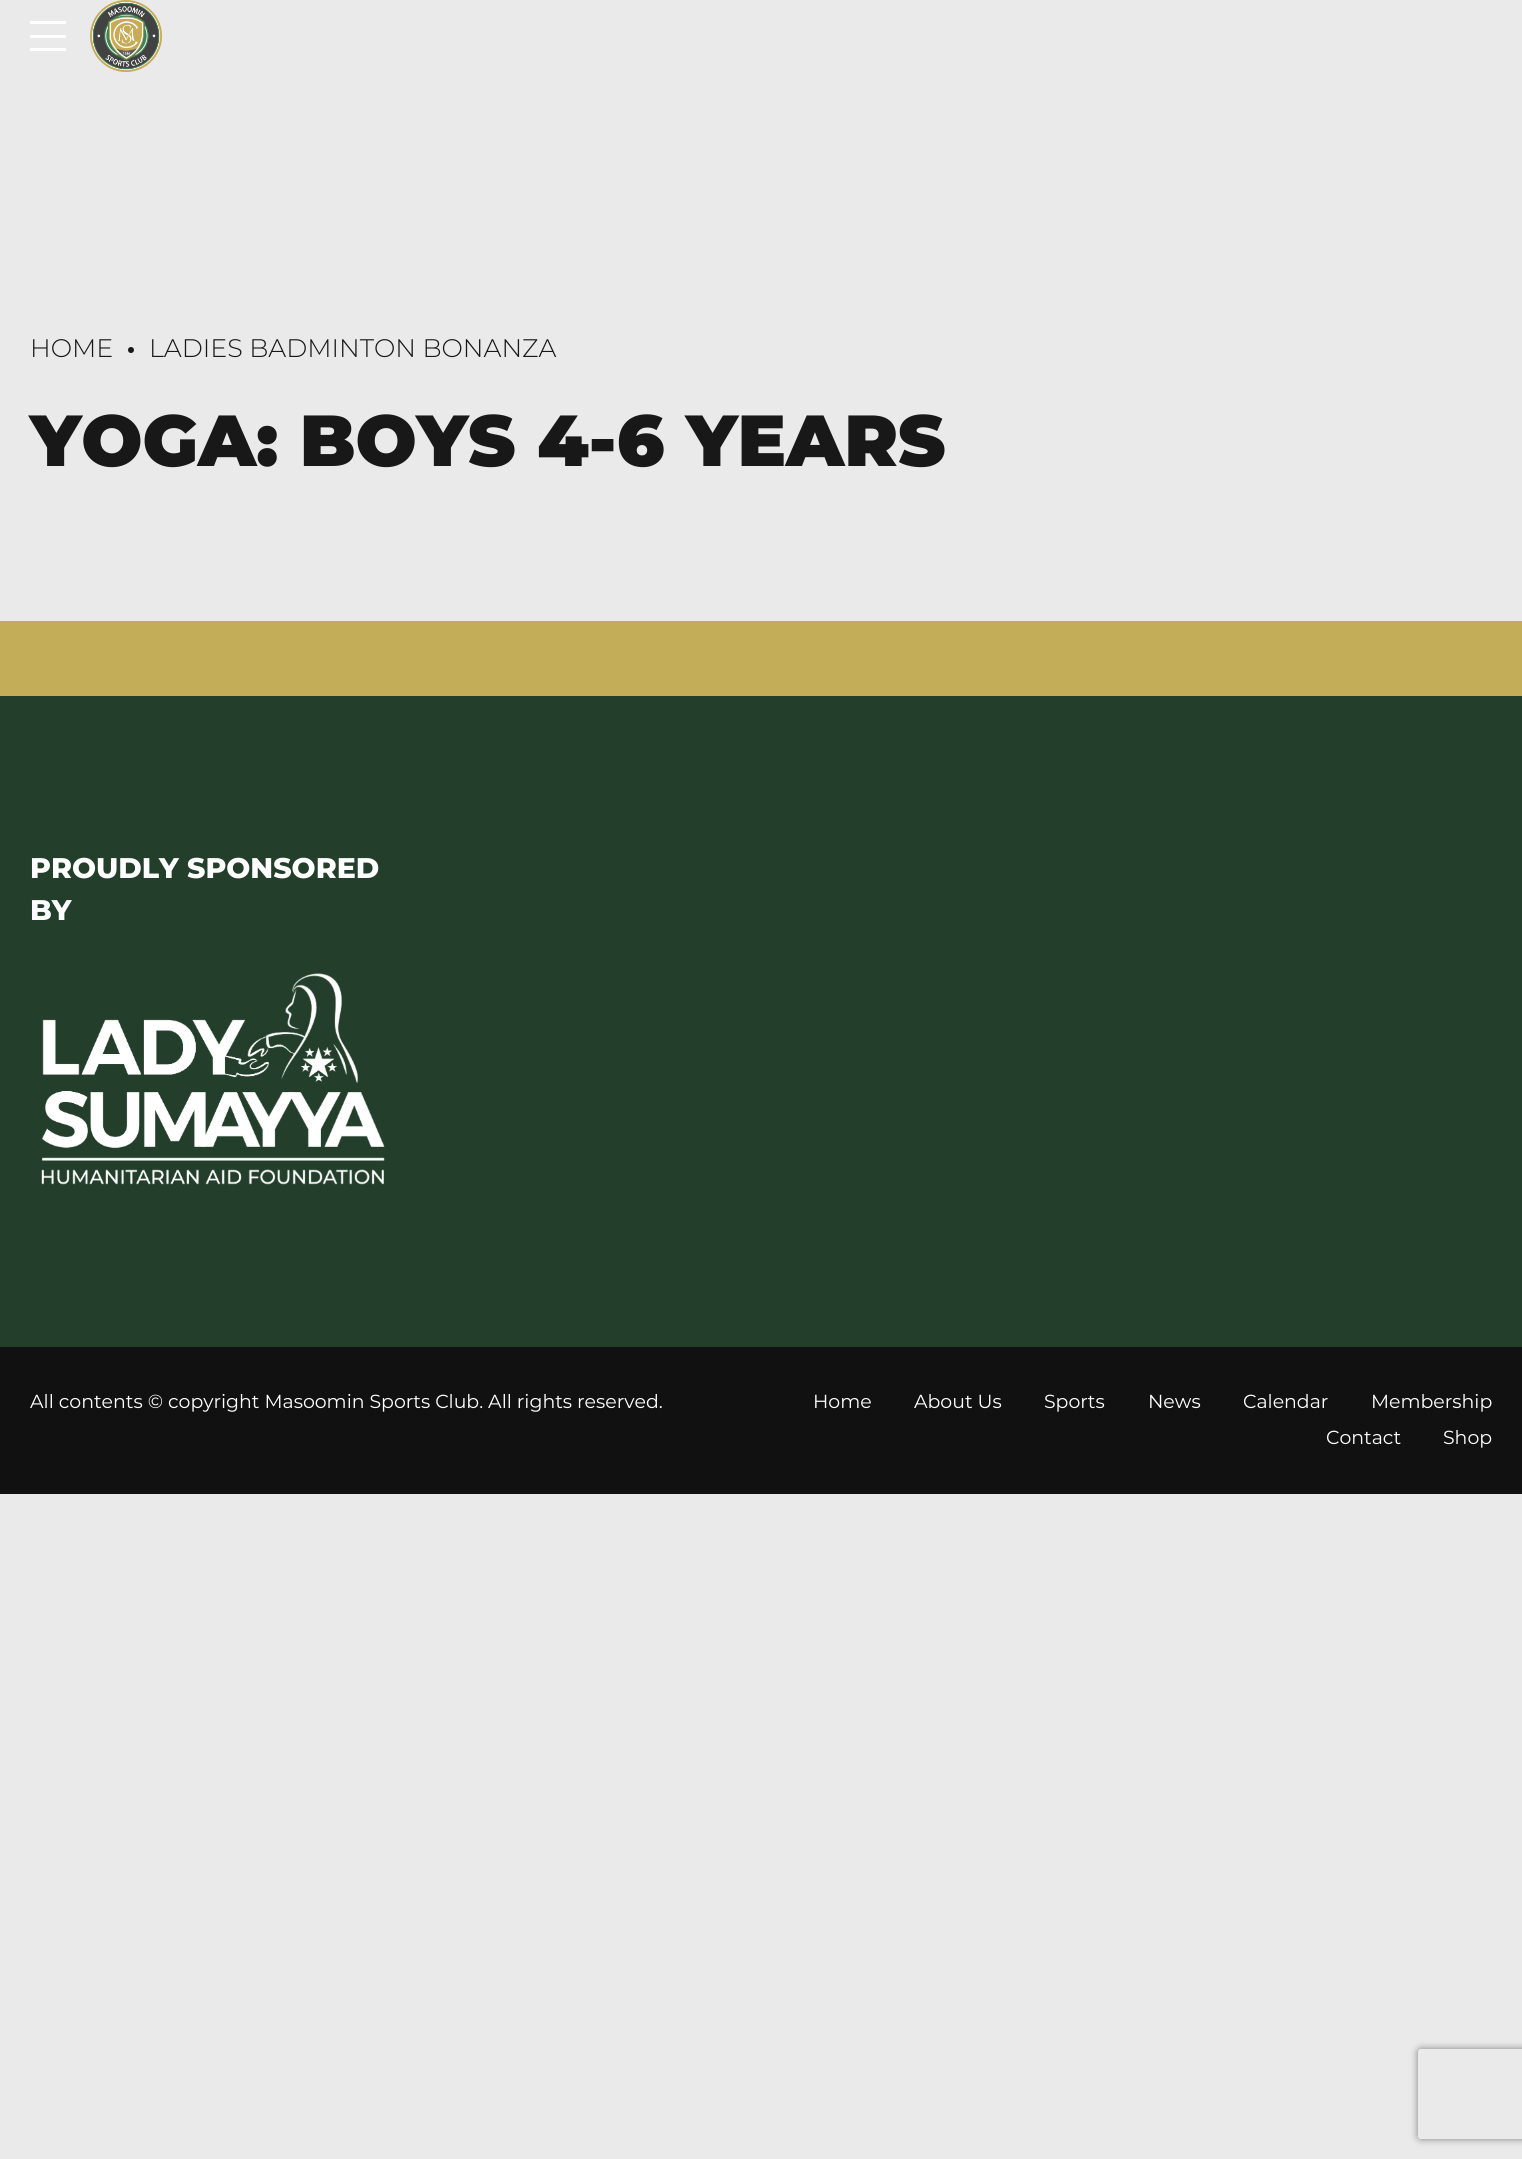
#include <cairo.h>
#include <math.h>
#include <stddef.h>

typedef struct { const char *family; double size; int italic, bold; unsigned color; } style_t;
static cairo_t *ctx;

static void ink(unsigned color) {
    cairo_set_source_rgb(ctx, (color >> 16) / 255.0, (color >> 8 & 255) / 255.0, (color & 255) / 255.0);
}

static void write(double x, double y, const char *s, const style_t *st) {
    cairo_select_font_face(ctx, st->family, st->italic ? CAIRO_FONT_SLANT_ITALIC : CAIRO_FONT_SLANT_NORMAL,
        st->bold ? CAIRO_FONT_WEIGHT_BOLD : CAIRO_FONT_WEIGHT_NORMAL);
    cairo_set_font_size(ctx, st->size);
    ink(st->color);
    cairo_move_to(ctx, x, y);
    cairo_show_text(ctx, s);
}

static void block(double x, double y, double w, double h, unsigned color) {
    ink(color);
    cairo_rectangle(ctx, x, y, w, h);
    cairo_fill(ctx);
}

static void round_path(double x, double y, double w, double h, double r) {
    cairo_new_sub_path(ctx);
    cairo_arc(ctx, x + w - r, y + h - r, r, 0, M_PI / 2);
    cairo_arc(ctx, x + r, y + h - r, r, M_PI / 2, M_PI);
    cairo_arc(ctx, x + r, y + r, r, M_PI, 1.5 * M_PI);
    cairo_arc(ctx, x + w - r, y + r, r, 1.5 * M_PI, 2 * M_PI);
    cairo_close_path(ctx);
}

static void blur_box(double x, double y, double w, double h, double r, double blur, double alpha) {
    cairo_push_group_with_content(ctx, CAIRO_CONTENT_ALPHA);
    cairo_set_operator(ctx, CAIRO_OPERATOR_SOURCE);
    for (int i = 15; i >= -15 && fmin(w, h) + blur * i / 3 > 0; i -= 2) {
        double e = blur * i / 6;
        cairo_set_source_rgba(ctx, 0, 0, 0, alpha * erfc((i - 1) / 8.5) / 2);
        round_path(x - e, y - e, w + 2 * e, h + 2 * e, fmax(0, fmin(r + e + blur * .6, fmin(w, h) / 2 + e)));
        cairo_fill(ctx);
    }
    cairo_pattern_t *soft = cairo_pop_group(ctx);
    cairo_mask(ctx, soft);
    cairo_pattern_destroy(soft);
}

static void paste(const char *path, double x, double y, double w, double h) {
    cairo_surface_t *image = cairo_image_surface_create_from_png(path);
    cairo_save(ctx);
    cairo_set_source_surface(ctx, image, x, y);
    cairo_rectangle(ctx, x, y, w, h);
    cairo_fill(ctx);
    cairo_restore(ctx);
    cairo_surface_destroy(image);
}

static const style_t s1 = {"Montserrat Light", 25.4, 0, 0, 0x181818};
static const style_t s2 = {"Montserrat Black", 72.2, 0, 0, 0x181818};
static const style_t s3 = {"Montserrat ExtraBold", 28.4, 0, 0, 0xffffff};
static const style_t s4 = {"Montserrat", 18.9, 0, 0, 0xffffff};

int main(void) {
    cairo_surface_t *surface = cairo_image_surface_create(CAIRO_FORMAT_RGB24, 1522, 2159);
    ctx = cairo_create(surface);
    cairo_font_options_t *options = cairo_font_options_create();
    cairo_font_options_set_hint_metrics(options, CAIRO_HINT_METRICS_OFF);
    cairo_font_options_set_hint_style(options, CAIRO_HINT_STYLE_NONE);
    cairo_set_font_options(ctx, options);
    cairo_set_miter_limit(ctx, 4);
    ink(0xeaeaea);
    cairo_paint(ctx);
    block(30, 21, 36, 3, 0xffffff);
    block(30, 35, 36, 3, 0xffffff);
    block(30, 48, 36, 3, 0xffffff);
    paste("pic1.png", 90, 0, 72, 72);
    write(30, 357, "HOME", &s1);
    cairo_new_path(ctx);
    cairo_arc(ctx, 131, 350, 3, 0, 2 * M_PI);
    cairo_fill(ctx);
    write(149, 357, "LADIES BADMINTON BONANZA", &s1);
    write(30, 466, "YOGA: BOYS 4-6 YEARS", &s2);
    block(0, 621, 1522, 75, 0xc3ad59);
    block(0, 1347, 1522, 147, 0x111111);
    block(0, 696, 1522, 651, 0x233e2a);
    write(30, 878, "PROUDLY SPONSORED", &s3);
    write(30, 920, "BY", &s3);
    paste("pic2.png", 41, 973, 344, 212);
    write(30, 1408, "All contents © copyright Masoomin Sports Club. All rights reserved.", &s4);
    write(813, 1408, "Home", &s4);
    write(914, 1408, "About Us", &s4);
    write(1044, 1408, "Sports", &s4);
    write(1148, 1408, "News", &s4);
    write(1243, 1408, "Calendar", &s4);
    write(1371, 1408, "Membership", &s4);
    write(1326, 1444, "Contact", &s4);
    write(1443, 1444, "Shop", &s4);
    cairo_save(ctx);
    cairo_set_fill_rule(ctx, CAIRO_FILL_RULE_EVEN_ODD);
    cairo_new_path(ctx);
    cairo_move_to(ctx, 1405, 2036);
    cairo_line_to(ctx, 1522, 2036);
    cairo_line_to(ctx, 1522, 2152);
    cairo_line_to(ctx, 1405, 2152);
    cairo_close_path(ctx);
    cairo_move_to(ctx, 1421, 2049);
    cairo_line_to(ctx, 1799, 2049);
    cairo_curve_to(ctx, 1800.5, 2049, 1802, 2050.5, 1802, 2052);
    cairo_line_to(ctx, 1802, 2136);
    cairo_curve_to(ctx, 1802, 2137.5, 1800.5, 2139, 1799, 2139);
    cairo_line_to(ctx, 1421, 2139);
    cairo_curve_to(ctx, 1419.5, 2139, 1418, 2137.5, 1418, 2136);
    cairo_line_to(ctx, 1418, 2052);
    cairo_curve_to(ctx, 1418, 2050.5, 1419.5, 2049, 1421, 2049);
    cairo_close_path(ctx);
    cairo_clip(ctx);
    ink(0x808080);
    blur_box(1418, 2049, 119, 90, 3, 4, 1);
    cairo_restore(ctx);
    cairo_surface_write_to_png(surface, "screenshot.png");
    cairo_font_options_destroy(options);
    cairo_destroy(ctx);
    cairo_surface_destroy(surface);
    return 0;
}
